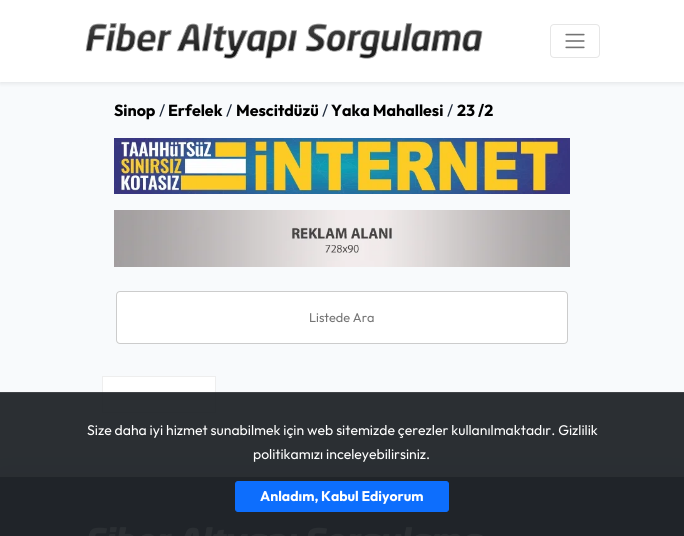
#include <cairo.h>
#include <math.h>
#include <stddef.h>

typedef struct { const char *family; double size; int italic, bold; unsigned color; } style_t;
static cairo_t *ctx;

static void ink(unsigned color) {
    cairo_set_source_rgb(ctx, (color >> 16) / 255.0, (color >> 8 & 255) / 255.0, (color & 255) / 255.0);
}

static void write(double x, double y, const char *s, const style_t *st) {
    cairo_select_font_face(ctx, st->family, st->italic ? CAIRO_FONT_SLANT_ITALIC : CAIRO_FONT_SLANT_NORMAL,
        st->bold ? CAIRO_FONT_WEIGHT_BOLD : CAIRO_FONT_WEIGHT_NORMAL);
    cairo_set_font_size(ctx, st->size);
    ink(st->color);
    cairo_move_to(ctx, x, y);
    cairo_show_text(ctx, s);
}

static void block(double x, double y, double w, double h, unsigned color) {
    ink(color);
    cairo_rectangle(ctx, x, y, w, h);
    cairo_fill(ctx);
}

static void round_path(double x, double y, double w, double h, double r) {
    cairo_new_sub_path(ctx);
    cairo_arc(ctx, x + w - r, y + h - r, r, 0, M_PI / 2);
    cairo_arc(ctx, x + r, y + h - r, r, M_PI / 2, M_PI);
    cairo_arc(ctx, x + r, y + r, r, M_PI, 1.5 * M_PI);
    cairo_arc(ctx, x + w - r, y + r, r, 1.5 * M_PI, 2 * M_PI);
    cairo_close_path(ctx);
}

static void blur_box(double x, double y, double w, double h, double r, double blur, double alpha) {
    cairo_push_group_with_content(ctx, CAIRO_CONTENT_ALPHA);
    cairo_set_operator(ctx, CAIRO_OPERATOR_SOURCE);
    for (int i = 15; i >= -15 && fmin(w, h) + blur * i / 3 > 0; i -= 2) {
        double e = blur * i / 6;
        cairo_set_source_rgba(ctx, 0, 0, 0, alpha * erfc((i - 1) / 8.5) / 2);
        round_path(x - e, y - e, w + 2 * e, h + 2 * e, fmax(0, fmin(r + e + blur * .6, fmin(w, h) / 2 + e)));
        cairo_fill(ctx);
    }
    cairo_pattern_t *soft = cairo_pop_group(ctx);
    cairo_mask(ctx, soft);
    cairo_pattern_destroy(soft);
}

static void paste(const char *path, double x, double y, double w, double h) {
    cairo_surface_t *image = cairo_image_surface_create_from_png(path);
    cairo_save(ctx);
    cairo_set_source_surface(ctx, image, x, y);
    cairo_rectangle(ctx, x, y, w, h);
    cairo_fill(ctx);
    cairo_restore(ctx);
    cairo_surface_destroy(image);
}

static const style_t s1 = {"Outfit", 16, 0, 1, 0x000000};
static const style_t s2 = {"Outfit", 16, 0, 0, 0x1e293b};
static const style_t s3 = {"Outfit", 12.75, 0, 0, 0x757575};
static const style_t s4 = {"Outfit", 14, 0, 0, 0xffffff};
static const style_t s5 = {"Outfit", 14, 0, 1, 0xffffff};

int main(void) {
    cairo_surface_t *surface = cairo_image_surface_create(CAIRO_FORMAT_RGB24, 684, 536);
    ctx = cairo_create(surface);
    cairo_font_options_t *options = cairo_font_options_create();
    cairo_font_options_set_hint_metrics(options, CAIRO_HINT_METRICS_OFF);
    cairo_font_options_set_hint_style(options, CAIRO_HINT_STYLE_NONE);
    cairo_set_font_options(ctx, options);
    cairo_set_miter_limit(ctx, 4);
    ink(0xf8fafc);
    cairo_paint(ctx);
    ink(0x000000);
    blur_box(0, 2, 684, 82, 0, 2, 0.07);
    block(0, 0, 684, 82, 0xffffff);
    paste("pic1.png", 85, 23, 398, 36);
    round_path(550.5, 24.5, 49, 33, 3.5);
    ink(0xe6e6e6);
    cairo_set_line_width(ctx, 1);
    cairo_stroke(ctx);
    paste("pic2.png", 565, 33, 20, 16);
    write(114, 116, "Sinop", &s1);
    write(159, 116, "/", &s2);
    write(168, 116, "Erfelek", &s1);
    write(226, 116, "/", &s2);
    write(236, 116, "Mescitdüzü", &s1);
    write(322, 116, "/", &s2);
    write(331, 116, "Yaka Mahallesi", &s1);
    write(447, 116, "/", &s2);
    write(457, 116, "23 /2", &s1);
    paste("pic3.png", 114, 138, 456, 56);
    paste("pic4.png", 114, 210, 456, 57);
    ink(0xffffff);
    round_path(116.5, 291.5, 451, 52, 3.5);
    cairo_fill_preserve(ctx);
    ink(0xcccccc);
    cairo_stroke(ctx);
    write(309, 322, "Listede Ara", &s3);
    ink(0xffffff);
    cairo_rectangle(ctx, 102.5, 376.5, 113, 36);
    cairo_fill_preserve(ctx);
    ink(0xeeeeee);
    cairo_stroke(ctx);
    ink(0x000000);
    blur_box(0, 493, 684, 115, 0, 24, 0.18);
    block(0, 477, 684, 59, 0x0f172a);
    paste("pic5.png", 88, 526, 395, 10);
    cairo_set_source_rgba(ctx, 0.129, 0.145, 0.161, 0.95);
    cairo_rectangle(ctx, 0, 392, 684, 144);
    cairo_fill(ctx);
    cairo_set_source_rgba(ctx, 1, 1, 1, 0.1);
    cairo_rectangle(ctx, 0, 392, 684, 1);
    cairo_fill(ctx);
    write(87, 435, "Size daha iyi hizmet sunabilmek için web sitemizde çerezler kullanılmaktadır. Gizlilik", &s4);
    write(253, 459, "politikamızı inceleyebilirsiniz.", &s4);
    ink(0x0d6efd);
    round_path(235.5, 481.5, 213, 30, 2.5);
    cairo_fill_preserve(ctx);
    cairo_stroke(ctx);
    write(260, 501, "Anladım, Kabul Ediyorum", &s5);
    cairo_surface_write_to_png(surface, "screenshot.png");
    cairo_font_options_destroy(options);
    cairo_destroy(ctx);
    cairo_surface_destroy(surface);
    return 0;
}
